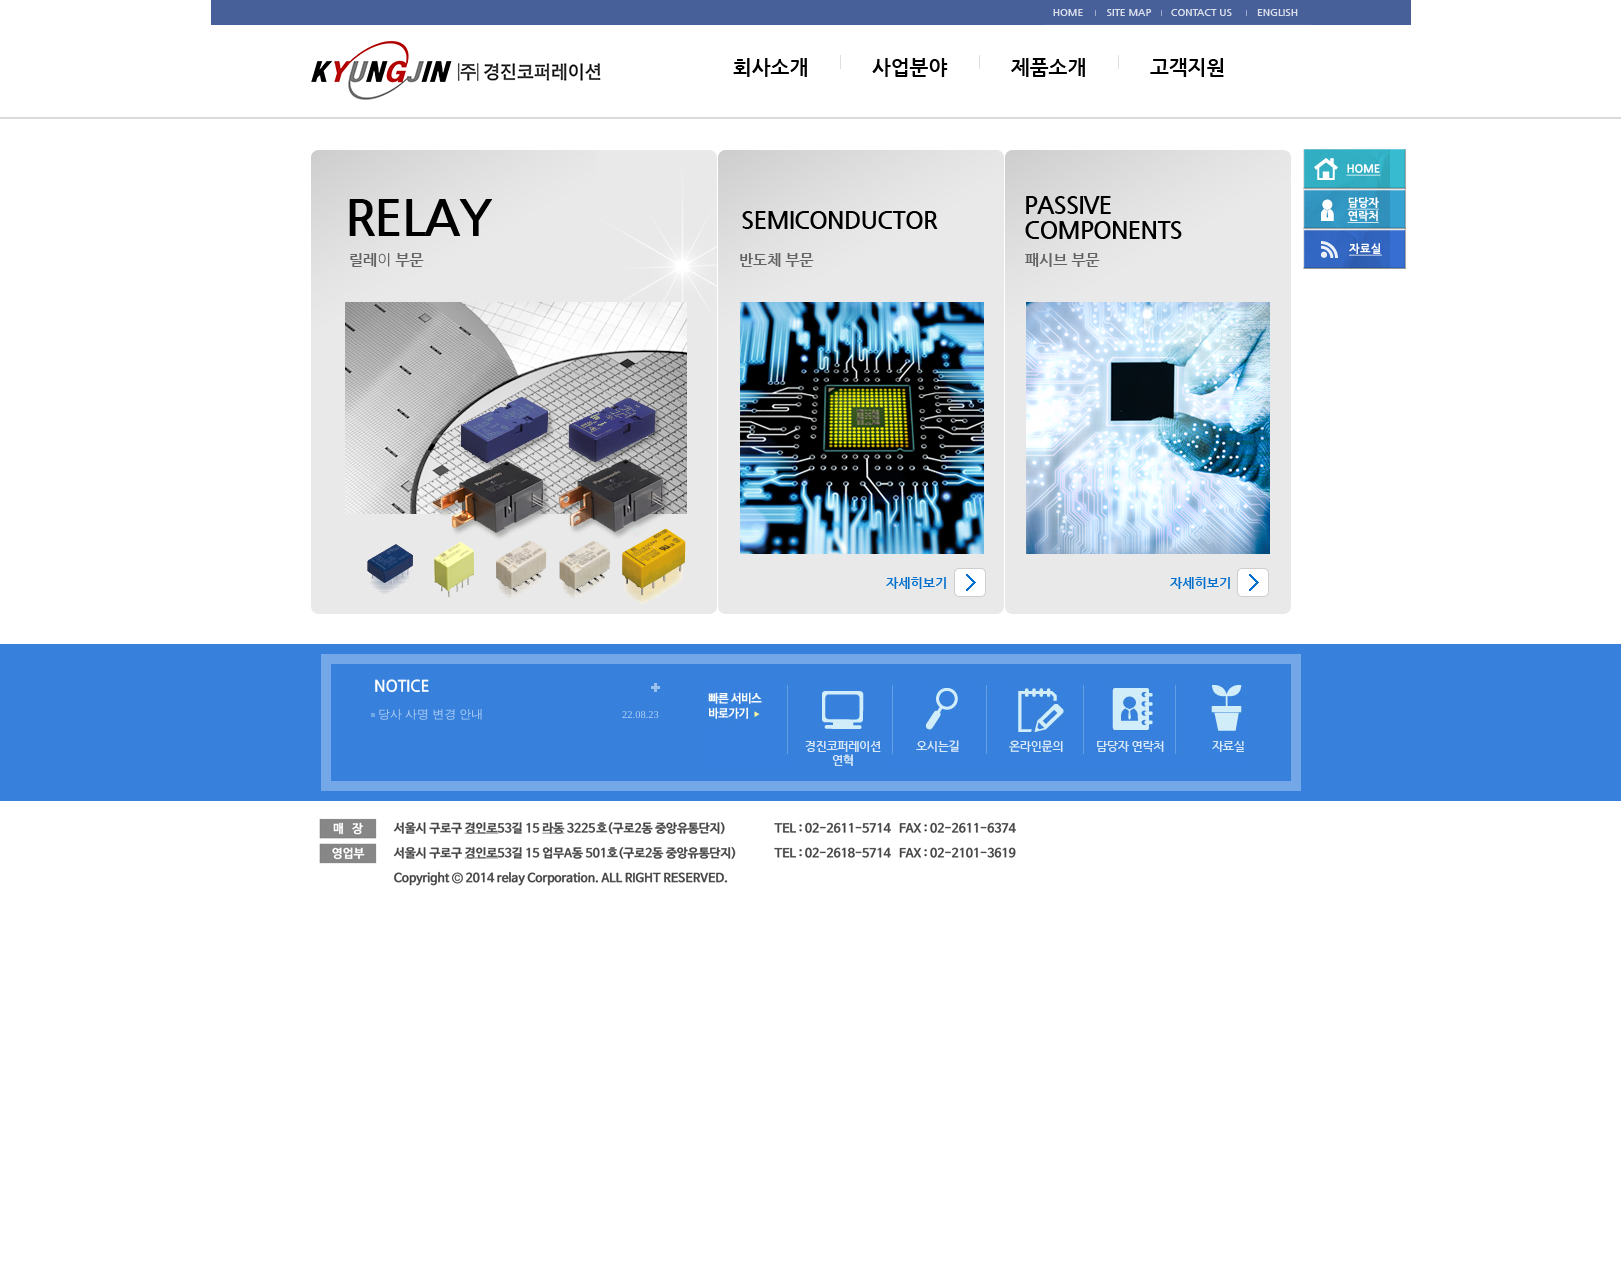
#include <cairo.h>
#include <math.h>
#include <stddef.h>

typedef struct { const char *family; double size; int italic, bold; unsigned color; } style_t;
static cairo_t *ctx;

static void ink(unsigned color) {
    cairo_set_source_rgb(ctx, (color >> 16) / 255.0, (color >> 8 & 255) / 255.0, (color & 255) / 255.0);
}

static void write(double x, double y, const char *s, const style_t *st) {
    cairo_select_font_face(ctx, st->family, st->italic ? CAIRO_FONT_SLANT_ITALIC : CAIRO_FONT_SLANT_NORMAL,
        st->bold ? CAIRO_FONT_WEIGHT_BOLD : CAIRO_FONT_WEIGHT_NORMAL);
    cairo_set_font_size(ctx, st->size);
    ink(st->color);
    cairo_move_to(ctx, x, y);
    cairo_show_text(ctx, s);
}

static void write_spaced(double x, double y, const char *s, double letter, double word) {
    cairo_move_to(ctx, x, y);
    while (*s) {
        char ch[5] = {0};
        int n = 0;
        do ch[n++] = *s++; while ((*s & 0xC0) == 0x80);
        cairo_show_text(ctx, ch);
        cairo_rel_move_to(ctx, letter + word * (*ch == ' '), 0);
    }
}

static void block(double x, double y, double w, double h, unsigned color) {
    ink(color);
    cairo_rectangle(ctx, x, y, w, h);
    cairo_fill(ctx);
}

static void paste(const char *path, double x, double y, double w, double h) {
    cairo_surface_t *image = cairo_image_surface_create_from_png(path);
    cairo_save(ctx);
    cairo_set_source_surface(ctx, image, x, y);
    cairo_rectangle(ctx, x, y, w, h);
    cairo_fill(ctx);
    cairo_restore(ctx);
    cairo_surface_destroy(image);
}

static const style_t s1 = {"Liberation Serif", 10.5, 0, 0, 0xb1cff4};

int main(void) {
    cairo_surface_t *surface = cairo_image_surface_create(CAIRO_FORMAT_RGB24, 1621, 1287);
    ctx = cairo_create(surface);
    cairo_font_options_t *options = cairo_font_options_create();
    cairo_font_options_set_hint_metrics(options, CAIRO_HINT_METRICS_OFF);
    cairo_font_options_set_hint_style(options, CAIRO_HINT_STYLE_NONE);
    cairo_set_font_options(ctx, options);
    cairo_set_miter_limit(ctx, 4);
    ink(0xffffff);
    cairo_paint(ctx);
    block(0, 117, 1621, 2, 0xdadada);
    block(211, 0, 1200, 25, 0x48609a);
    paste("pic1.png", 1045, 9, 51, 16);
    paste("pic2.png", 1096, 9, 66, 16);
    paste("pic3.png", 1162, 9, 84, 16);
    paste("pic4.png", 1246, 9, 65, 16);
    paste("pic5.png", 311, 40, 290, 60);
    paste("pic6.png", 733, 58, 74, 19);
    block(840, 55, 1, 14, 0xdfdfdf);
    paste("pic7.png", 872, 58, 76, 19);
    block(979, 55, 1, 14, 0xdfdfdf);
    paste("pic8.png", 1011, 58, 74, 19);
    block(1118, 55, 1, 14, 0xdfdfdf);
    paste("pic9.png", 1150, 58, 74, 19);
    paste("pic10.png", 311, 150, 22, 464);
    paste("pic11.png", 333, 150, 384, 464);
    paste("pic12.png", 718, 150, 286, 464);
    paste("pic13.png", 1005, 150, 286, 464);
    paste("pic14.png", 1303, 149, 103, 40);
    paste("pic15.png", 1303, 189, 103, 40);
    paste("pic16.png", 1303, 229, 103, 40);
    block(0, 644, 1621, 157, 0x3781dc);
    block(331, 654, 960, 10, 0x73a7e7);
    block(1291, 654, 10, 127, 0x73a7e7);
    block(331, 781, 970, 10, 0x73a7e7);
    block(321, 654, 10, 137, 0x73a7e7);
    paste("pic17.png", 371, 676, 292, 17);
    block(371, 713, 4, 4, 0x74a7e8);
    cairo_select_font_face(ctx, "WenQuanYi Zen Hei Medium", CAIRO_FONT_SLANT_NORMAL, CAIRO_FONT_WEIGHT_NORMAL);
    cairo_set_font_size(ctx, 12);
    ink(0xb1cff4);
    write_spaced(378, 718, "당사 사명 변경 안내", 0, -0.5);
    write(622, 718, "22.08.23", &s1);
    paste("pic18.png", 703, 684, 544, 82);
    paste("pic19.png", 319, 818, 697, 68);
    cairo_surface_write_to_png(surface, "screenshot.png");
    cairo_font_options_destroy(options);
    cairo_destroy(ctx);
    cairo_surface_destroy(surface);
    return 0;
}
